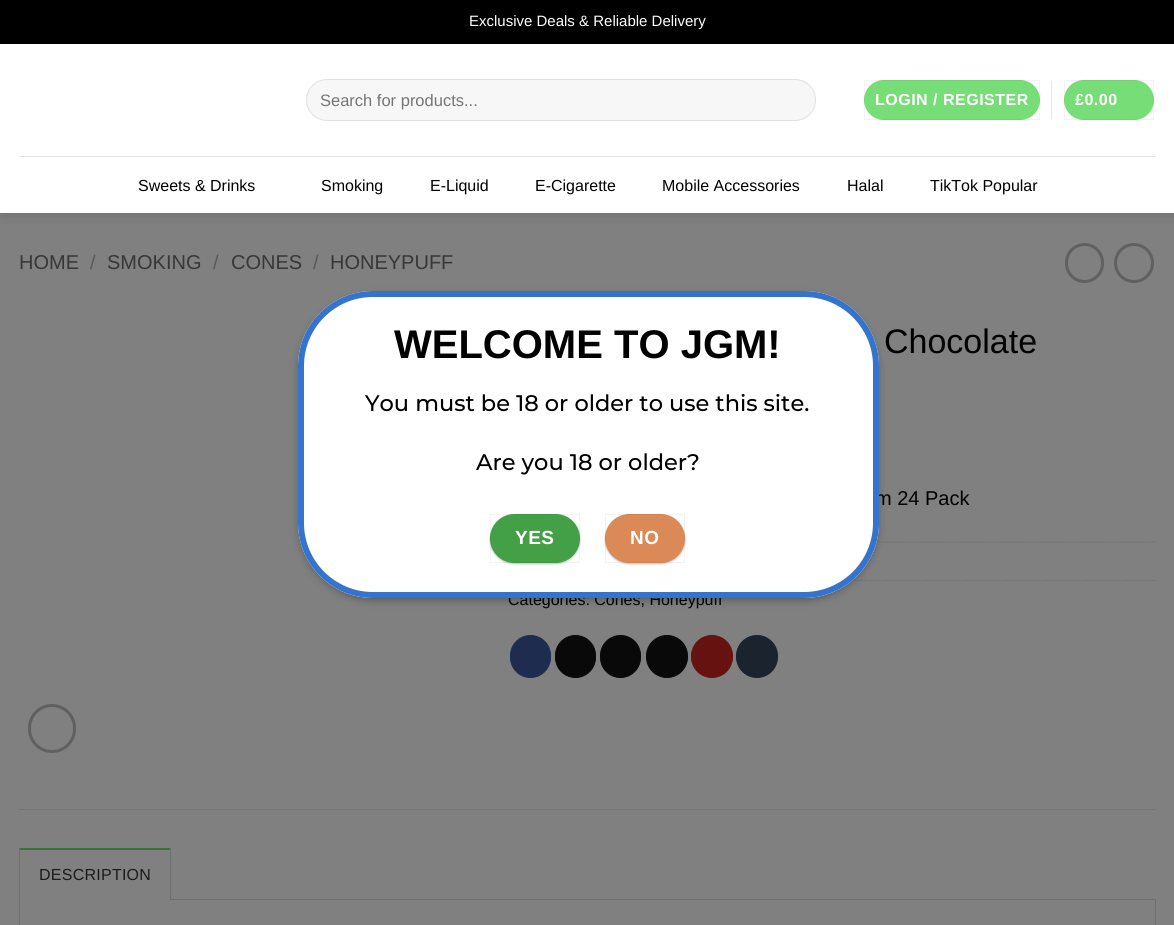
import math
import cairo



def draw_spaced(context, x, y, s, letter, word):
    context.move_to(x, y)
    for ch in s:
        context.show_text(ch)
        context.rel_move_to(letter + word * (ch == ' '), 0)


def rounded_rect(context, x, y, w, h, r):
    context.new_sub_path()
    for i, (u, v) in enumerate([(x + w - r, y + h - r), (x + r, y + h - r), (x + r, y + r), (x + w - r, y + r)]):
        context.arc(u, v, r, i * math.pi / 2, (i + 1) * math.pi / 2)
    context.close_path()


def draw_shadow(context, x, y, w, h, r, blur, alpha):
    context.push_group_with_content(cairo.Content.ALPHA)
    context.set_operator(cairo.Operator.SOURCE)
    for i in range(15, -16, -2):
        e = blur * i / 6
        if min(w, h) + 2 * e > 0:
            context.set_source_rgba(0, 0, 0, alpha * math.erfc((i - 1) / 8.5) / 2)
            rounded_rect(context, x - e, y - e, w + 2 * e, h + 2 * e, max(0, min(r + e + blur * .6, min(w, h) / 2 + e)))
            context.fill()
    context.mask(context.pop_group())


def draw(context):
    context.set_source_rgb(128 / 255, 128 / 255, 128 / 255)
    context.paint()
    context.set_source_rgb(0, 0, 0)
    draw_shadow(context, 1, 1, 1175, 213, 0, 6, 0.15)
    context.set_source_rgb(0, 0, 0)
    context.rectangle(0, 0, 1174, 44)
    context.fill()
    context.set_source_rgb(1, 1, 1)
    context.rectangle(0, 44, 1174, 169)
    context.fill()
    context.set_source_rgb(247 / 255, 247 / 255, 247 / 255)
    rounded_rect(context, 306, 79, 510, 42, 21)
    context.fill()
    rounded_rect(context, 306.5, 79.5, 509, 41, 20.5)
    context.set_source_rgba(0, 0, 0, 0.09)
    context.set_line_width(1)
    context.stroke()
    context.set_source_rgb(119 / 255, 221 / 255, 119 / 255)
    rounded_rect(context, 864, 80, 176, 40, 20)
    context.fill()
    context.rectangle(864.5, 80.5, 175, 39)
    context.set_source_rgba(0, 0, 0, 0.05)
    context.stroke()
    context.set_source_rgb(230 / 255, 230 / 255, 230 / 255)
    context.rectangle(1051, 81, 1, 38)
    context.fill()
    context.set_source_rgb(119 / 255, 221 / 255, 119 / 255)
    rounded_rect(context, 1064, 80, 90, 40, 20)
    context.fill()
    context.rectangle(1064.5, 80.5, 89, 39)
    context.set_source_rgba(0, 0, 0, 0.05)
    context.stroke()
    context.set_source_rgb(230 / 255, 230 / 255, 230 / 255)
    context.rectangle(19, 156, 1137, 1)
    context.fill()
    rounded_rect(context, 1066.5, 244.5, 36, 37, 18)
    context.set_source_rgb(96 / 255, 96 / 255, 96 / 255)
    context.set_line_width(3)
    context.stroke()
    context.arc(1134, 263, 18.5, 0, 2 * math.pi)
    context.stroke()
    context.new_path()
    context.move_to(509, 542)
    context.line_to(1156, 542)
    context.set_source_rgb(111 / 255, 111 / 255, 111 / 255)
    context.set_line_width(1.2)
    context.set_dash([1.25, 1.25])
    context.stroke()
    context.new_path()
    context.move_to(509, 580.5)
    context.line_to(1156, 580.5)
    context.stroke()
    context.set_source_rgb(29 / 255, 44 / 255, 79 / 255)
    rounded_rect(context, 510.5, 635.5, 40, 42, 20)
    context.fill_preserve()
    context.set_line_width(1)
    context.set_dash([])
    context.stroke()
    context.set_source_rgb(9 / 255, 9 / 255, 9 / 255)
    rounded_rect(context, 555.5, 635.5, 40, 42, 20)
    context.fill_preserve()
    context.stroke()
    rounded_rect(context, 600.5, 635.5, 40, 42, 20)
    context.fill_preserve()
    context.stroke()
    rounded_rect(context, 646.5, 635.5, 41, 42, 20.5)
    context.fill_preserve()
    context.stroke()
    context.set_source_rgb(102 / 255, 18 / 255, 16 / 255)
    rounded_rect(context, 691.5, 635.5, 41, 42, 20.5)
    context.fill_preserve()
    context.stroke()
    context.set_source_rgb(27 / 255, 35 / 255, 47 / 255)
    rounded_rect(context, 736.5, 635.5, 41, 42, 20.5)
    context.fill_preserve()
    context.stroke()
    rounded_rect(context, 29.5, 705.5, 45, 46, 22.5)
    context.set_source_rgb(96 / 255, 96 / 255, 96 / 255)
    context.set_line_width(3)
    context.stroke()
    context.set_source_rgb(118 / 255, 118 / 255, 118 / 255)
    context.rectangle(19, 809, 1137, 1)
    context.fill()
    context.rectangle(19.5, 899.5, 1136, 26)
    context.set_source_rgb(111 / 255, 111 / 255, 111 / 255)
    context.set_line_width(1)
    context.stroke()
    context.set_source_rgb(128 / 255, 128 / 255, 128 / 255)
    context.rectangle(19, 899, 152, 1)
    context.fill()
    context.set_source_rgb(60 / 255, 111 / 255, 60 / 255)
    context.new_path()
    context.move_to(19, 848)
    context.line_to(171, 848)
    context.line_to(170, 850)
    context.line_to(20, 850)
    context.close_path()
    context.fill()
    context.set_source_rgb(111 / 255, 111 / 255, 111 / 255)
    context.new_path()
    context.move_to(171, 848)
    context.line_to(171, 900)
    context.line_to(170, 900)
    context.line_to(170, 850)
    context.close_path()
    context.fill()
    context.new_path()
    context.move_to(19, 900)
    context.line_to(19, 848)
    context.line_to(20, 850)
    context.line_to(20, 900)
    context.close_path()
    context.fill()
    context.set_source_rgb(0, 0, 0)
    draw_shadow(context, 298, 295, 581, 306, 75, 4, 0.23)
    draw_shadow(context, 303, 300, 571, 296, 70, 4, 0.16)
    context.select_font_face("Liberation Sans")
    context.set_font_size(15)
    context.set_source_rgb(1, 1, 1)
    context.move_to(469, 26)
    context.show_text("Exclusive Deals & Reliable Delivery")
    context.set_font_size(16.5)
    context.set_source_rgb(117 / 255, 117 / 255, 117 / 255)
    context.move_to(320, 106)
    context.show_text("Search for products...")
    context.select_font_face("Liberation Sans", cairo.FontSlant.NORMAL, cairo.FontWeight.BOLD)
    context.set_font_size(16)
    context.set_source_rgb(1, 1, 1)
    draw_spaced(context, 875, 105, "LOGIN / REGISTER", 0.5, 0)
    draw_spaced(context, 1075, 105, "£0.00", 0.5, 0)
    context.select_font_face("Liberation Sans")
    context.set_source_rgb(0, 0, 0)
    context.move_to(138, 191)
    context.show_text("Sweets & Drinks")
    context.move_to(321, 191)
    context.show_text("Smoking")
    context.move_to(430, 191)
    context.show_text("E-Liquid")
    context.move_to(535, 191)
    context.show_text("E-Cigarette")
    context.move_to(662, 191)
    context.show_text("Mobile Accessories")
    context.move_to(847, 191)
    context.show_text("Halal")
    context.move_to(930, 191)
    context.show_text("TikTok Popular")
    context.set_font_size(20)
    context.set_source_rgb(55 / 255, 55 / 255, 55 / 255)
    context.move_to(19, 269)
    context.show_text("HOME")
    context.set_source_rgb(89 / 255, 89 / 255, 89 / 255)
    context.move_to(90, 269)
    context.show_text("/")
    context.set_source_rgb(55 / 255, 55 / 255, 55 / 255)
    context.move_to(107, 269)
    context.show_text("SMOKING")
    context.set_source_rgb(89 / 255, 89 / 255, 89 / 255)
    context.move_to(213, 269)
    context.show_text("/")
    context.set_source_rgb(55 / 255, 55 / 255, 55 / 255)
    context.move_to(231, 269)
    context.show_text("CONES")
    context.set_source_rgb(89 / 255, 89 / 255, 89 / 255)
    context.move_to(313, 269)
    context.show_text("/")
    context.set_source_rgb(55 / 255, 55 / 255, 55 / 255)
    context.move_to(330, 269)
    context.show_text("HONEYPUFF")
    context.set_font_size(34)
    context.set_source_rgb(0, 0, 0)
    context.move_to(884, 353)
    context.show_text("Chocolate")
    context.set_font_size(20)
    context.move_to(875, 505)
    context.show_text("m 24 Pack")
    context.set_font_size(16)
    context.move_to(508, 605)
    context.show_text("Categories: Cones, Honeypuff")
    context.set_source_rgb(27 / 255, 27 / 255, 27 / 255)
    draw_spaced(context, 39, 880, "DESCRIPTION", 0.25, 0)
    context.set_source_rgb(1, 1, 1)
    rounded_rect(context, 298, 291, 581, 307, 75)
    context.fill()
    rounded_rect(context, 301, 294, 575, 301, 72)
    context.set_source_rgb(52 / 255, 116 / 255, 204 / 255)
    context.set_line_width(6)
    context.stroke()
    context.select_font_face("Liberation Sans", cairo.FontSlant.NORMAL, cairo.FontWeight.BOLD)
    context.set_font_size(40)
    context.set_source_rgb(0, 0, 0)
    context.move_to(394, 358)
    context.show_text("WELCOME TO JGM!")
    context.select_font_face("Montserrat Medium")
    context.set_font_size(22.5)
    context.move_to(365, 411)
    context.show_text("You must be 18 or older to use this site.")
    context.move_to(476, 470)
    context.show_text("Are you 18 or older?")
    context.set_source_rgb(0, 0, 0)
    draw_shadow(context, 490, 515, 90, 49, 24.5, 1, 0.24)
    draw_shadow(context, 493, 518, 85, 43, 21.5, 2, 0.12)
    context.set_source_rgb(67 / 255, 160 / 255, 71 / 255)
    rounded_rect(context, 490, 514, 90, 49, 24.5)
    context.fill()
    context.rectangle(490.5, 514.5, 89, 48)
    context.set_source_rgba(0, 0, 0, 0.05)
    context.set_line_width(1)
    context.stroke()
    context.select_font_face("Liberation Sans", cairo.FontSlant.NORMAL, cairo.FontWeight.BOLD)
    context.set_font_size(19)
    context.set_source_rgb(1, 1, 1)
    draw_spaced(context, 515, 544, "YES", 0.5, 0)
    context.set_source_rgb(0, 0, 0)
    draw_shadow(context, 605, 515, 80, 49, 24.5, 1, 0.24)
    draw_shadow(context, 608, 518, 75, 43, 21.5, 2, 0.12)
    context.set_source_rgb(219 / 255, 137 / 255, 86 / 255)
    rounded_rect(context, 605, 514, 80, 49, 24.5)
    context.fill()
    context.rectangle(605.5, 514.5, 79, 48)
    context.set_source_rgba(0, 0, 0, 0.05)
    context.stroke()
    context.set_source_rgb(1, 1, 1)
    draw_spaced(context, 630, 544, "NO", 0.5, 0)


surface = cairo.ImageSurface(cairo.Format.RGB24, 1174, 925)
context = cairo.Context(surface)
options = cairo.FontOptions()
options.set_hint_metrics(cairo.HintMetrics.OFF)
options.set_hint_style(cairo.HintStyle.NONE)
context.set_font_options(options)
context.set_miter_limit(4)
draw(context)
surface.write_to_png("out.png")
